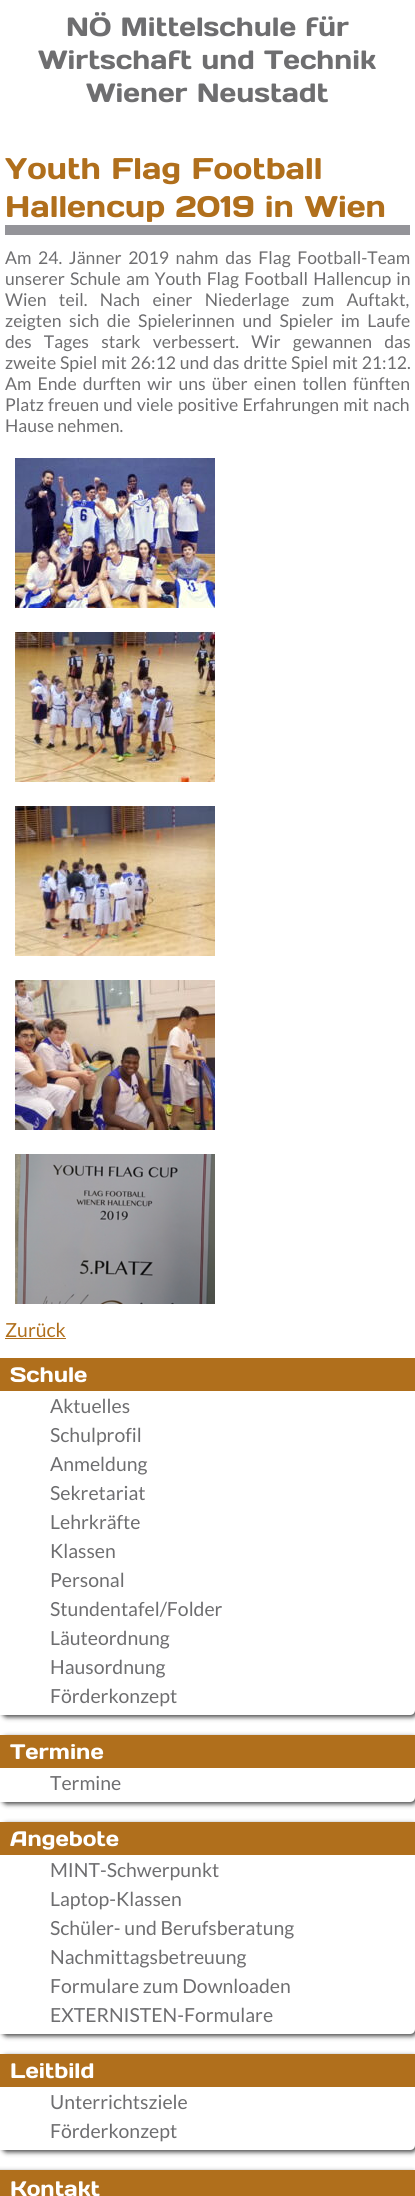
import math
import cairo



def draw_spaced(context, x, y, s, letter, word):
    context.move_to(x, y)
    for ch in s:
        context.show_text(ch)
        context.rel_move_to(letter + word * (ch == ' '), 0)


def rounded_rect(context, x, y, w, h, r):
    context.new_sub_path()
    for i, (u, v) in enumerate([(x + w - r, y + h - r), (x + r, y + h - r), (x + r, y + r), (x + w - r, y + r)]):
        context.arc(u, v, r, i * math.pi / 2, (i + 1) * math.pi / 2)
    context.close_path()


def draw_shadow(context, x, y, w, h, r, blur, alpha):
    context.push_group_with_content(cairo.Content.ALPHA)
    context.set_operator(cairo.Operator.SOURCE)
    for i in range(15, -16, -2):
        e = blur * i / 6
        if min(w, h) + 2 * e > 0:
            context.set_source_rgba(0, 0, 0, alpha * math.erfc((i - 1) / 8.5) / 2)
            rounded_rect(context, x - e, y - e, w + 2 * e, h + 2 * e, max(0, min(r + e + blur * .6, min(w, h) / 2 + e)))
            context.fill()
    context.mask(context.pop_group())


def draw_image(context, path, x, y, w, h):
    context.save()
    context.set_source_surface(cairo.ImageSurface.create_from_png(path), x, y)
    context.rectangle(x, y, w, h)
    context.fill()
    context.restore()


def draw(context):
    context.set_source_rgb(1, 1, 1)
    context.paint()
    context.set_source_rgb(148 / 255, 148 / 255, 153 / 255)
    context.rectangle(5, 225, 405, 10)
    context.fill()
    draw_image(context, "images/1.png", 15, 458, 200, 150)
    draw_image(context, "images/2.png", 15, 632, 200, 150)
    draw_image(context, "images/3.png", 15, 806, 200, 150)
    draw_image(context, "images/4.png", 15, 980, 200, 150)
    draw_image(context, "images/5.png", 15, 1154, 200, 150)
    context.set_source_rgb(176 / 255, 111 / 255, 28 / 255)
    context.rectangle(5, 1338, 61, 1)
    context.fill()
    context.save()
    context.rectangle(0, 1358, 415, 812)
    context.clip()
    context.set_source_rgb(0, 0, 0)
    draw_shadow(context, 2, 1360, 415, 357, 5, 2.5, 0.75)
    context.restore()
    context.rectangle(0, 1358, 415, 33)
    context.fill()
    context.set_source_rgb(1, 1, 1)
    context.new_path()
    context.move_to(0, 1391)
    context.line_to(415, 1391)
    context.line_to(415, 1710)
    context.curve_to(415, 1713, 413, 1715, 410, 1715)
    context.line_to(0, 1715)
    context.close_path()
    context.fill()
    context.set_source_rgb(0, 0, 0)
    draw_shadow(context, 2, 1737, 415, 67, 5, 2.5, 0.75)
    context.set_source_rgb(176 / 255, 111 / 255, 28 / 255)
    context.rectangle(0, 1735, 415, 33)
    context.fill()
    context.set_source_rgb(1, 1, 1)
    context.new_path()
    context.move_to(0, 1768)
    context.line_to(415, 1768)
    context.line_to(415, 1797)
    context.curve_to(415, 1800, 413, 1802, 410, 1802)
    context.line_to(0, 1802)
    context.close_path()
    context.fill()
    context.set_source_rgb(0, 0, 0)
    draw_shadow(context, 2, 1824, 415, 212, 5, 2.5, 0.75)
    context.set_source_rgb(176 / 255, 111 / 255, 28 / 255)
    context.rectangle(0, 1822, 415, 33)
    context.fill()
    context.set_source_rgb(1, 1, 1)
    context.new_path()
    context.move_to(0, 1855)
    context.line_to(415, 1855)
    context.line_to(415, 2029)
    context.curve_to(415, 2032, 413, 2034, 410, 2034)
    context.line_to(0, 2034)
    context.close_path()
    context.fill()
    context.set_source_rgb(0, 0, 0)
    draw_shadow(context, 2, 2056, 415, 96, 5, 2.5, 0.75)
    context.set_source_rgb(176 / 255, 111 / 255, 28 / 255)
    context.rectangle(0, 2054, 415, 33)
    context.fill()
    context.set_source_rgb(1, 1, 1)
    context.new_path()
    context.move_to(0, 2087)
    context.line_to(415, 2087)
    context.line_to(415, 2145)
    context.curve_to(415, 2148, 413, 2150, 410, 2150)
    context.line_to(0, 2150)
    context.close_path()
    context.fill()
    context.set_source_rgb(0, 0, 0)
    draw_shadow(context, -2, 2172, 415, 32, 0, 2.5, 0.75)
    context.set_source_rgb(176 / 255, 111 / 255, 28 / 255)
    context.rectangle(0, 2170, 415, 26)
    context.fill()
    context.select_font_face("Days One")
    context.set_font_size(26.4)
    context.set_source_rgb(110 / 255, 110 / 255, 112 / 255)
    context.move_to(66, 36)
    context.show_text("NÖ Mittelschule für")
    context.move_to(38, 69)
    context.show_text("Wirtschaft und Technik")
    context.move_to(86, 102)
    context.show_text("Wiener Neustadt")
    context.set_font_size(29.9)
    context.set_source_rgb(176 / 255, 111 / 255, 28 / 255)
    context.move_to(5, 179)
    context.show_text("Youth Flag Football")
    context.move_to(5, 217)
    context.show_text("Hallencup 2019 in Wien")
    context.select_font_face("Lato")
    context.set_font_size(17.6)
    context.set_source_rgb(110 / 255, 110 / 255, 112 / 255)
    draw_spaced(context, 5, 264, "Am 24. Jänner 2019 nahm das Flag Football-Team", 0, 3.25)
    draw_spaced(context, 5, 285, "unserer Schule am Youth Flag Football Hallencup in", 0, 1.75)
    draw_spaced(context, 5, 306, "Wien teil. Nach einer Niederlage zum Auftakt,", 0, 9)
    draw_spaced(context, 5, 327, "zeigten sich die Spielerinnen und Spieler im Laufe", 0, 4.25)
    draw_spaced(context, 5, 348, "des Tages stark verbessert. Wir gewannen das", 0, 8.75)
    draw_spaced(context, 5, 369, "zweite Spiel mit 26:12 und das dritte Spiel mit 21:12.", 0, 0.5)
    draw_spaced(context, 5, 390, "Am Ende durften wir uns über einen tollen fünften", 0, 2.75)
    draw_spaced(context, 5, 411, "Platz freuen und viele positive Erfahrungen mit nach", 0, 0.75)
    context.move_to(5, 432)
    context.show_text("Hause nehmen.")
    context.set_font_size(19.4)
    context.set_source_rgb(176 / 255, 111 / 255, 28 / 255)
    context.move_to(5, 1337)
    context.show_text("Zurück")
    context.select_font_face("Days One")
    context.set_font_size(21)
    context.set_source_rgb(1, 1, 1)
    context.move_to(10, 1382)
    context.show_text("Schule")
    context.select_font_face("Lato")
    context.set_font_size(19.4)
    context.set_source_rgb(110 / 255, 110 / 255, 112 / 255)
    context.move_to(50, 1413)
    context.show_text("Aktuelles")
    context.move_to(50, 1442)
    context.show_text("Schulprofil")
    context.move_to(50, 1471)
    context.show_text("Anmeldung")
    context.move_to(50, 1500)
    context.show_text("Sekretariat")
    context.move_to(50, 1529)
    context.show_text("Lehrkräfte")
    context.move_to(50, 1558)
    context.show_text("Klassen")
    context.move_to(50, 1587)
    context.show_text("Personal")
    context.move_to(50, 1616)
    context.show_text("Stundentafel/Folder")
    context.move_to(50, 1645)
    context.show_text("Läuteordnung")
    context.move_to(50, 1674)
    context.show_text("Hausordnung")
    context.move_to(50, 1703)
    context.show_text("Förderkonzept")
    context.select_font_face("Days One")
    context.set_font_size(21)
    context.set_source_rgb(1, 1, 1)
    context.move_to(10, 1759)
    context.show_text("Termine")
    context.select_font_face("Lato")
    context.set_font_size(19.4)
    context.set_source_rgb(110 / 255, 110 / 255, 112 / 255)
    context.move_to(50, 1790)
    context.show_text("Termine")
    context.select_font_face("Days One")
    context.set_font_size(21)
    context.set_source_rgb(1, 1, 1)
    context.move_to(10, 1846)
    context.show_text("Angebote")
    context.select_font_face("Lato")
    context.set_font_size(19.4)
    context.set_source_rgb(110 / 255, 110 / 255, 112 / 255)
    context.move_to(50, 1877)
    context.show_text("MINT-Schwerpunkt")
    context.move_to(50, 1906)
    context.show_text("Laptop-Klassen")
    context.move_to(50, 1935)
    context.show_text("Schüler- und Berufsberatung")
    context.move_to(50, 1964)
    context.show_text("Nachmittagsbetreuung")
    context.move_to(50, 1993)
    context.show_text("Formulare zum Downloaden")
    context.move_to(50, 2022)
    context.show_text("EXTERNISTEN-Formulare")
    context.select_font_face("Days One")
    context.set_font_size(21)
    context.set_source_rgb(1, 1, 1)
    context.move_to(10, 2078)
    context.show_text("Leitbild")
    context.select_font_face("Lato")
    context.set_font_size(19.4)
    context.set_source_rgb(110 / 255, 110 / 255, 112 / 255)
    context.move_to(50, 2109)
    context.show_text("Unterrichtsziele")
    context.move_to(50, 2138)
    context.show_text("Förderkonzept")
    context.select_font_face("Days One")
    context.set_font_size(21)
    context.set_source_rgb(1, 1, 1)
    context.move_to(10, 2196)
    context.show_text("Kontakt")


surface = cairo.ImageSurface(cairo.Format.RGB24, 415, 2196)
context = cairo.Context(surface)
options = cairo.FontOptions()
options.set_hint_metrics(cairo.HintMetrics.OFF)
options.set_hint_style(cairo.HintStyle.NONE)
context.set_font_options(options)
context.set_miter_limit(4)
draw(context)
surface.write_to_png("out.png")
